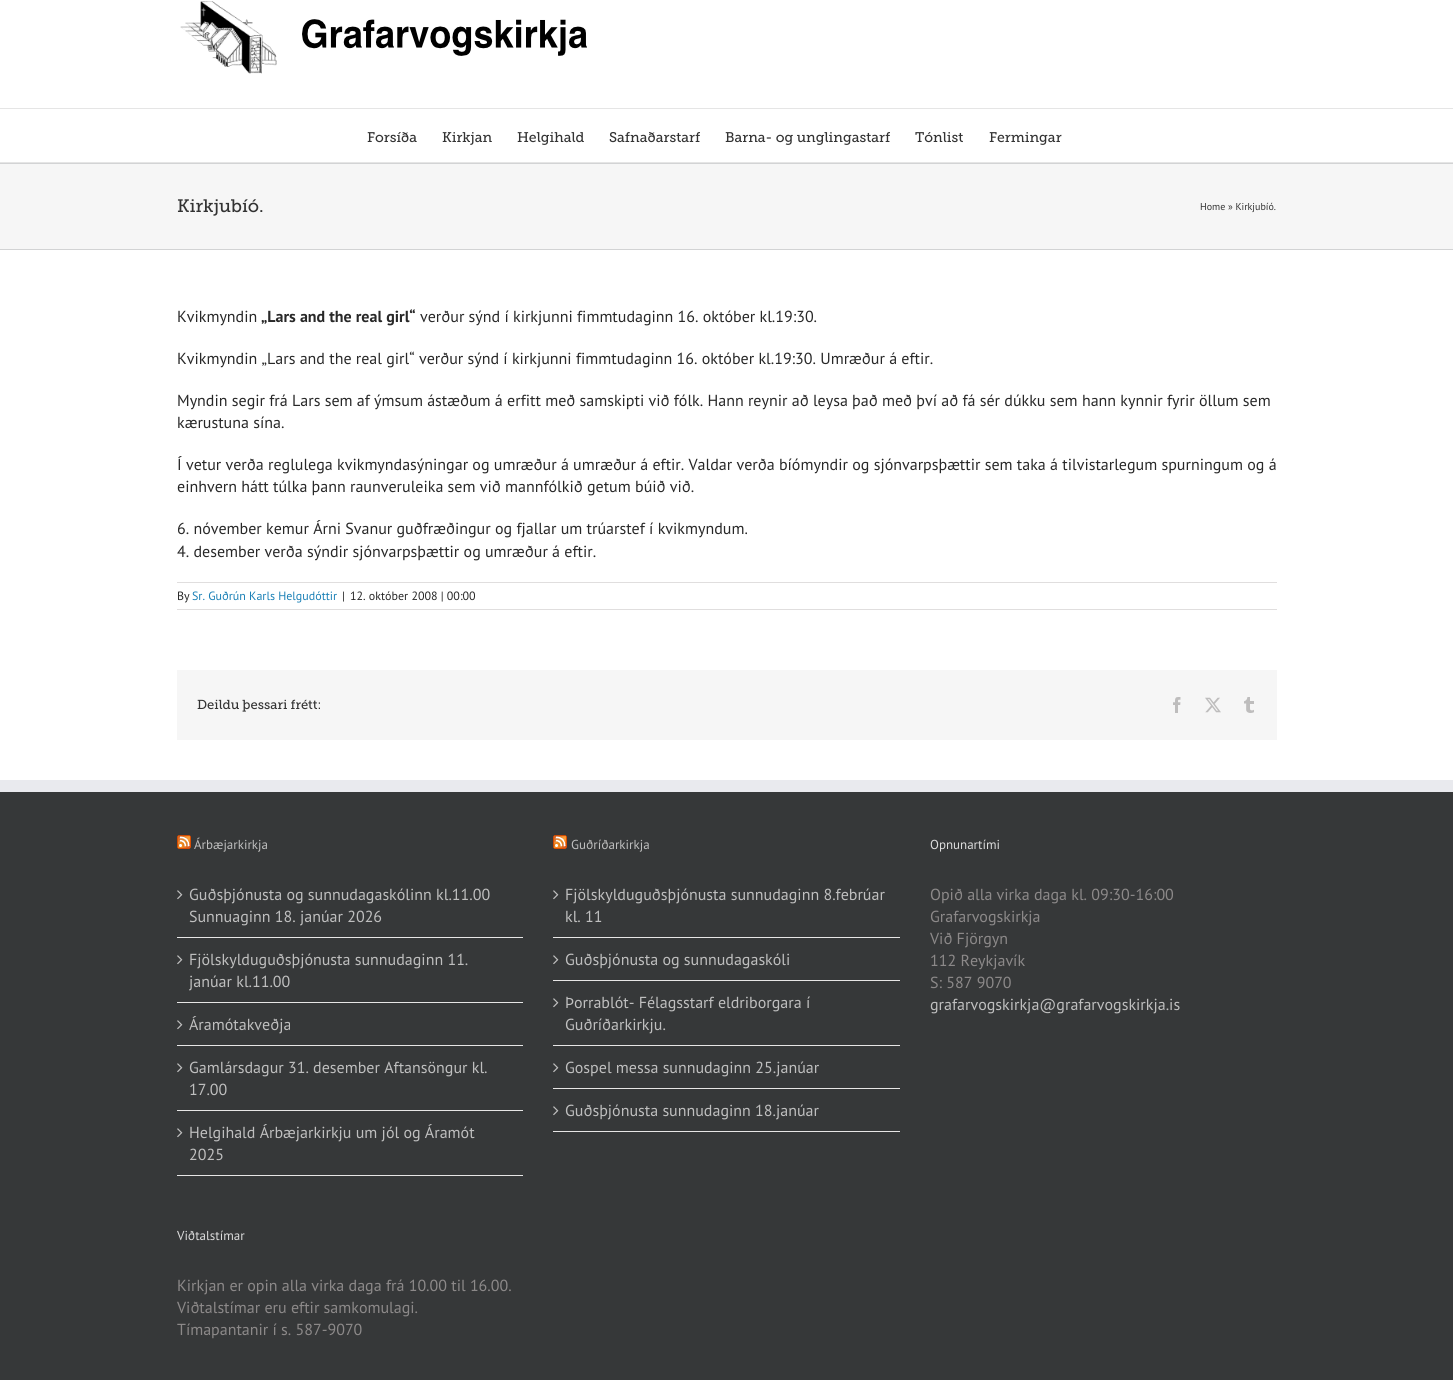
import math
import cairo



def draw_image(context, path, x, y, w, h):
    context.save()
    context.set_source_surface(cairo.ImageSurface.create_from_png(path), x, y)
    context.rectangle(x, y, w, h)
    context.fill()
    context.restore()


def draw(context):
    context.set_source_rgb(1, 1, 1)
    context.paint()
    context.set_source_rgb(229 / 255, 229 / 255, 229 / 255)
    context.rectangle(0, 108, 1453, 1)
    context.fill()
    draw_image(context, "images/1.png", 180, 1, 407, 73)
    context.rectangle(0, 162, 1453, 1)
    context.fill()
    context.set_source_rgb(246 / 255, 246 / 255, 246 / 255)
    context.rectangle(0, 164, 1453, 85)
    context.fill()
    context.set_source_rgb(210 / 255, 211 / 255, 212 / 255)
    context.rectangle(0, 163, 1453, 1)
    context.fill()
    context.rectangle(0, 249, 1453, 1)
    context.fill()
    context.set_source_rgb(224 / 255, 222 / 255, 222 / 255)
    context.rectangle(177, 582, 1100, 1)
    context.fill()
    context.rectangle(177, 609, 1100, 1)
    context.fill()
    context.set_source_rgb(246 / 255, 246 / 255, 246 / 255)
    context.rectangle(177, 670, 1100, 70)
    context.fill()
    draw_image(context, "images/2.png", 1173, 697, 8, 16)
    draw_image(context, "images/3.png", 1205, 697, 16, 16)
    draw_image(context, "images/4.png", 1244, 697, 10, 16)
    context.set_source_rgb(54 / 255, 56 / 255, 57 / 255)
    context.rectangle(0, 792, 1453, 588)
    context.fill()
    context.set_source_rgb(233 / 255, 234 / 255, 238 / 255)
    context.rectangle(0, 780, 1453, 12)
    context.fill()
    draw_image(context, "images/5.png", 177, 835, 14, 14)
    context.set_source_rgb(231 / 255, 230 / 255, 230 / 255)
    context.rectangle(177, 937, 346, 1)
    context.fill()
    draw_image(context, "images/6.png", 177, 890, 6, 10)
    context.rectangle(177, 1002, 346, 1)
    context.fill()
    draw_image(context, "images/6.png", 177, 955, 6, 10)
    context.rectangle(177, 1045, 346, 1)
    context.fill()
    draw_image(context, "images/6.png", 177, 1020, 6, 10)
    context.rectangle(177, 1110, 346, 1)
    context.fill()
    draw_image(context, "images/6.png", 177, 1063, 6, 10)
    context.rectangle(177, 1175, 346, 1)
    context.fill()
    draw_image(context, "images/6.png", 177, 1128, 6, 10)
    draw_image(context, "images/5.png", 553, 835, 14, 14)
    context.rectangle(553, 937, 347, 1)
    context.fill()
    draw_image(context, "images/6.png", 553, 890, 6, 10)
    context.rectangle(553, 980, 347, 1)
    context.fill()
    draw_image(context, "images/6.png", 553, 955, 6, 10)
    context.rectangle(553, 1045, 347, 1)
    context.fill()
    draw_image(context, "images/6.png", 553, 998, 6, 10)
    context.rectangle(553, 1088, 347, 1)
    context.fill()
    draw_image(context, "images/6.png", 553, 1063, 6, 10)
    context.rectangle(553, 1131, 347, 1)
    context.fill()
    draw_image(context, "images/6.png", 553, 1106, 6, 10)
    context.select_font_face("Museo Slab")
    context.set_font_size(14)
    context.set_source_rgb(51 / 255, 51 / 255, 51 / 255)
    context.move_to(367, 142)
    context.show_text("Forsíða")
    context.move_to(442, 142)
    context.show_text("Kirkjan")
    context.move_to(517, 142)
    context.show_text("Helgihald")
    context.move_to(609, 142)
    context.show_text("Safnaðarstarf")
    context.move_to(725, 142)
    context.show_text("Barna- og unglingastarf")
    context.move_to(915, 142)
    context.show_text("Tónlist")
    context.move_to(989, 142)
    context.show_text("Fermingar")
    context.set_font_size(18)
    context.move_to(177, 212)
    context.show_text("Kirkjubíó.")
    context.select_font_face("PT Sans")
    context.set_font_size(10)
    context.move_to(1200, 210)
    context.show_text("Home » Kirkjubíó.")
    context.set_font_size(16)
    context.set_source_rgb(40 / 255, 40 / 255, 40 / 255)
    context.move_to(177, 322)
    context.show_text("Kvikmyndin")
    context.select_font_face("PT Sans", cairo.FontSlant.NORMAL, cairo.FontWeight.BOLD)
    context.move_to(261, 322)
    context.show_text("„Lars and the real girl“")
    context.select_font_face("PT Sans")
    context.move_to(420, 322)
    context.show_text("verður sýnd í kirkjunni fimmtudaginn 16. október kl.19:30.")
    context.move_to(177, 364)
    context.show_text("Kvikmyndin „Lars and the real girl“ verður sýnd í kirkjunni fimmtudaginn 16. október kl.19:30. Umræður á eftir.")
    context.move_to(177, 406)
    context.show_text("Myndin segir frá Lars sem af ýmsum ástæðum á erfitt með samskipti við fólk. Hann reynir að leysa það með því að fá sér dúkku sem hann kynnir fyrir öllum sem")
    context.move_to(177, 428)
    context.show_text("kærustuna sína.")
    context.move_to(177, 470)
    context.show_text("Í vetur verða reglulega kvikmyndasýningar og umræður á umræður á eftir. Valdar verða bíómyndir og sjónvarpsþættir sem taka á tilvistarlegum spurningum og á")
    context.move_to(177, 492)
    context.show_text("einhvern hátt túlka þann raunveruleika sem við mannfólkið getum búið við.")
    context.move_to(177, 534)
    context.show_text("6. nóvember kemur Árni Svanur guðfræðingur og fjallar um trúarstef í kvikmyndum.")
    context.move_to(177, 557)
    context.show_text("4. desember verða sýndir sjónvarpsþættir og umræður á eftir.")
    context.set_font_size(12)
    context.move_to(177, 600)
    context.show_text("By")
    context.set_source_rgb(26 / 255, 128 / 255, 182 / 255)
    context.move_to(192, 600)
    context.show_text("Sr. Guðrún Karls Helgudóttir")
    context.set_source_rgb(40 / 255, 40 / 255, 40 / 255)
    context.move_to(342, 600)
    context.show_text("|")
    context.move_to(350, 600)
    context.show_text("12. október 2008 | 00:00")
    context.select_font_face("Museo Slab")
    context.set_font_size(13)
    context.set_source_rgb(51 / 255, 51 / 255, 51 / 255)
    context.move_to(197, 709)
    context.show_text("Deildu þessari frétt:")
    context.select_font_face("PT Sans")
    context.set_source_rgb(191 / 255, 191 / 255, 191 / 255)
    context.move_to(194, 849)
    context.show_text("Árbæjarkirkja")
    context.set_font_size(16)
    context.move_to(189, 900)
    context.show_text("Guðsþjónusta og sunnudagaskólinn kl.11.00")
    context.move_to(189, 922)
    context.show_text("Sunnuaginn 18. janúar 2026")
    context.move_to(189, 965)
    context.show_text("Fjölskylduguðsþjónusta sunnudaginn 11.")
    context.move_to(189, 987)
    context.show_text("janúar kl.11.00")
    context.move_to(189, 1030)
    context.show_text("Áramótakveðja")
    context.move_to(189, 1073)
    context.show_text("Gamlársdagur 31. desember Aftansöngur kl.")
    context.move_to(189, 1095)
    context.show_text("17.00")
    context.move_to(189, 1138)
    context.show_text("Helgihald Árbæjarkirkju um jól og Áramót")
    context.move_to(189, 1160)
    context.show_text("2025")
    context.set_font_size(13)
    context.set_source_rgb(221 / 255, 221 / 255, 221 / 255)
    context.move_to(177, 1240)
    context.show_text("Viðtalstímar")
    context.set_font_size(16)
    context.set_source_rgb(140 / 255, 137 / 255, 137 / 255)
    context.move_to(177, 1291)
    context.show_text("Kirkjan er opin alla virka daga frá 10.00 til 16.00.")
    context.move_to(177, 1313)
    context.show_text("Viðtalstímar eru eftir samkomulagi.")
    context.move_to(177, 1335)
    context.show_text("Tímapantanir í s. 587-9070")
    context.set_font_size(13)
    context.set_source_rgb(191 / 255, 191 / 255, 191 / 255)
    context.move_to(571, 849)
    context.show_text("Guðríðarkirkja")
    context.set_font_size(16)
    context.move_to(565, 900)
    context.show_text("Fjölskylduguðsþjónusta sunnudaginn 8.febrúar")
    context.move_to(565, 922)
    context.show_text("kl. 11")
    context.move_to(565, 965)
    context.show_text("Guðsþjónusta og sunnudagaskóli")
    context.move_to(565, 1008)
    context.show_text("Þorrablót- Félagsstarf eldriborgara í")
    context.move_to(565, 1030)
    context.show_text("Guðríðarkirkju.")
    context.move_to(565, 1073)
    context.show_text("Gospel messa sunnudaginn 25.janúar")
    context.move_to(565, 1116)
    context.show_text("Guðsþjónusta sunnudaginn 18.janúar")
    context.set_font_size(13)
    context.set_source_rgb(221 / 255, 221 / 255, 221 / 255)
    context.move_to(930, 849)
    context.show_text("Opnunartími")
    context.set_font_size(16)
    context.set_source_rgb(140 / 255, 137 / 255, 137 / 255)
    context.move_to(930, 900)
    context.show_text("Opið alla virka daga kl. 09:30-16:00")
    context.move_to(930, 922)
    context.show_text("Grafarvogskirkja")
    context.move_to(930, 944)
    context.show_text("Við Fjörgyn")
    context.move_to(930, 966)
    context.show_text("112 Reykjavík")
    context.move_to(930, 988)
    context.show_text("S: 587 9070")
    context.set_source_rgb(191 / 255, 191 / 255, 191 / 255)
    context.move_to(930, 1010)
    context.show_text("grafarvogskirkja@grafarvogskirkja.is")


surface = cairo.ImageSurface(cairo.Format.RGB24, 1453, 1380)
context = cairo.Context(surface)
options = cairo.FontOptions()
options.set_hint_metrics(cairo.HintMetrics.OFF)
options.set_hint_style(cairo.HintStyle.NONE)
context.set_font_options(options)
context.set_miter_limit(4)
draw(context)
surface.write_to_png("out.png")
